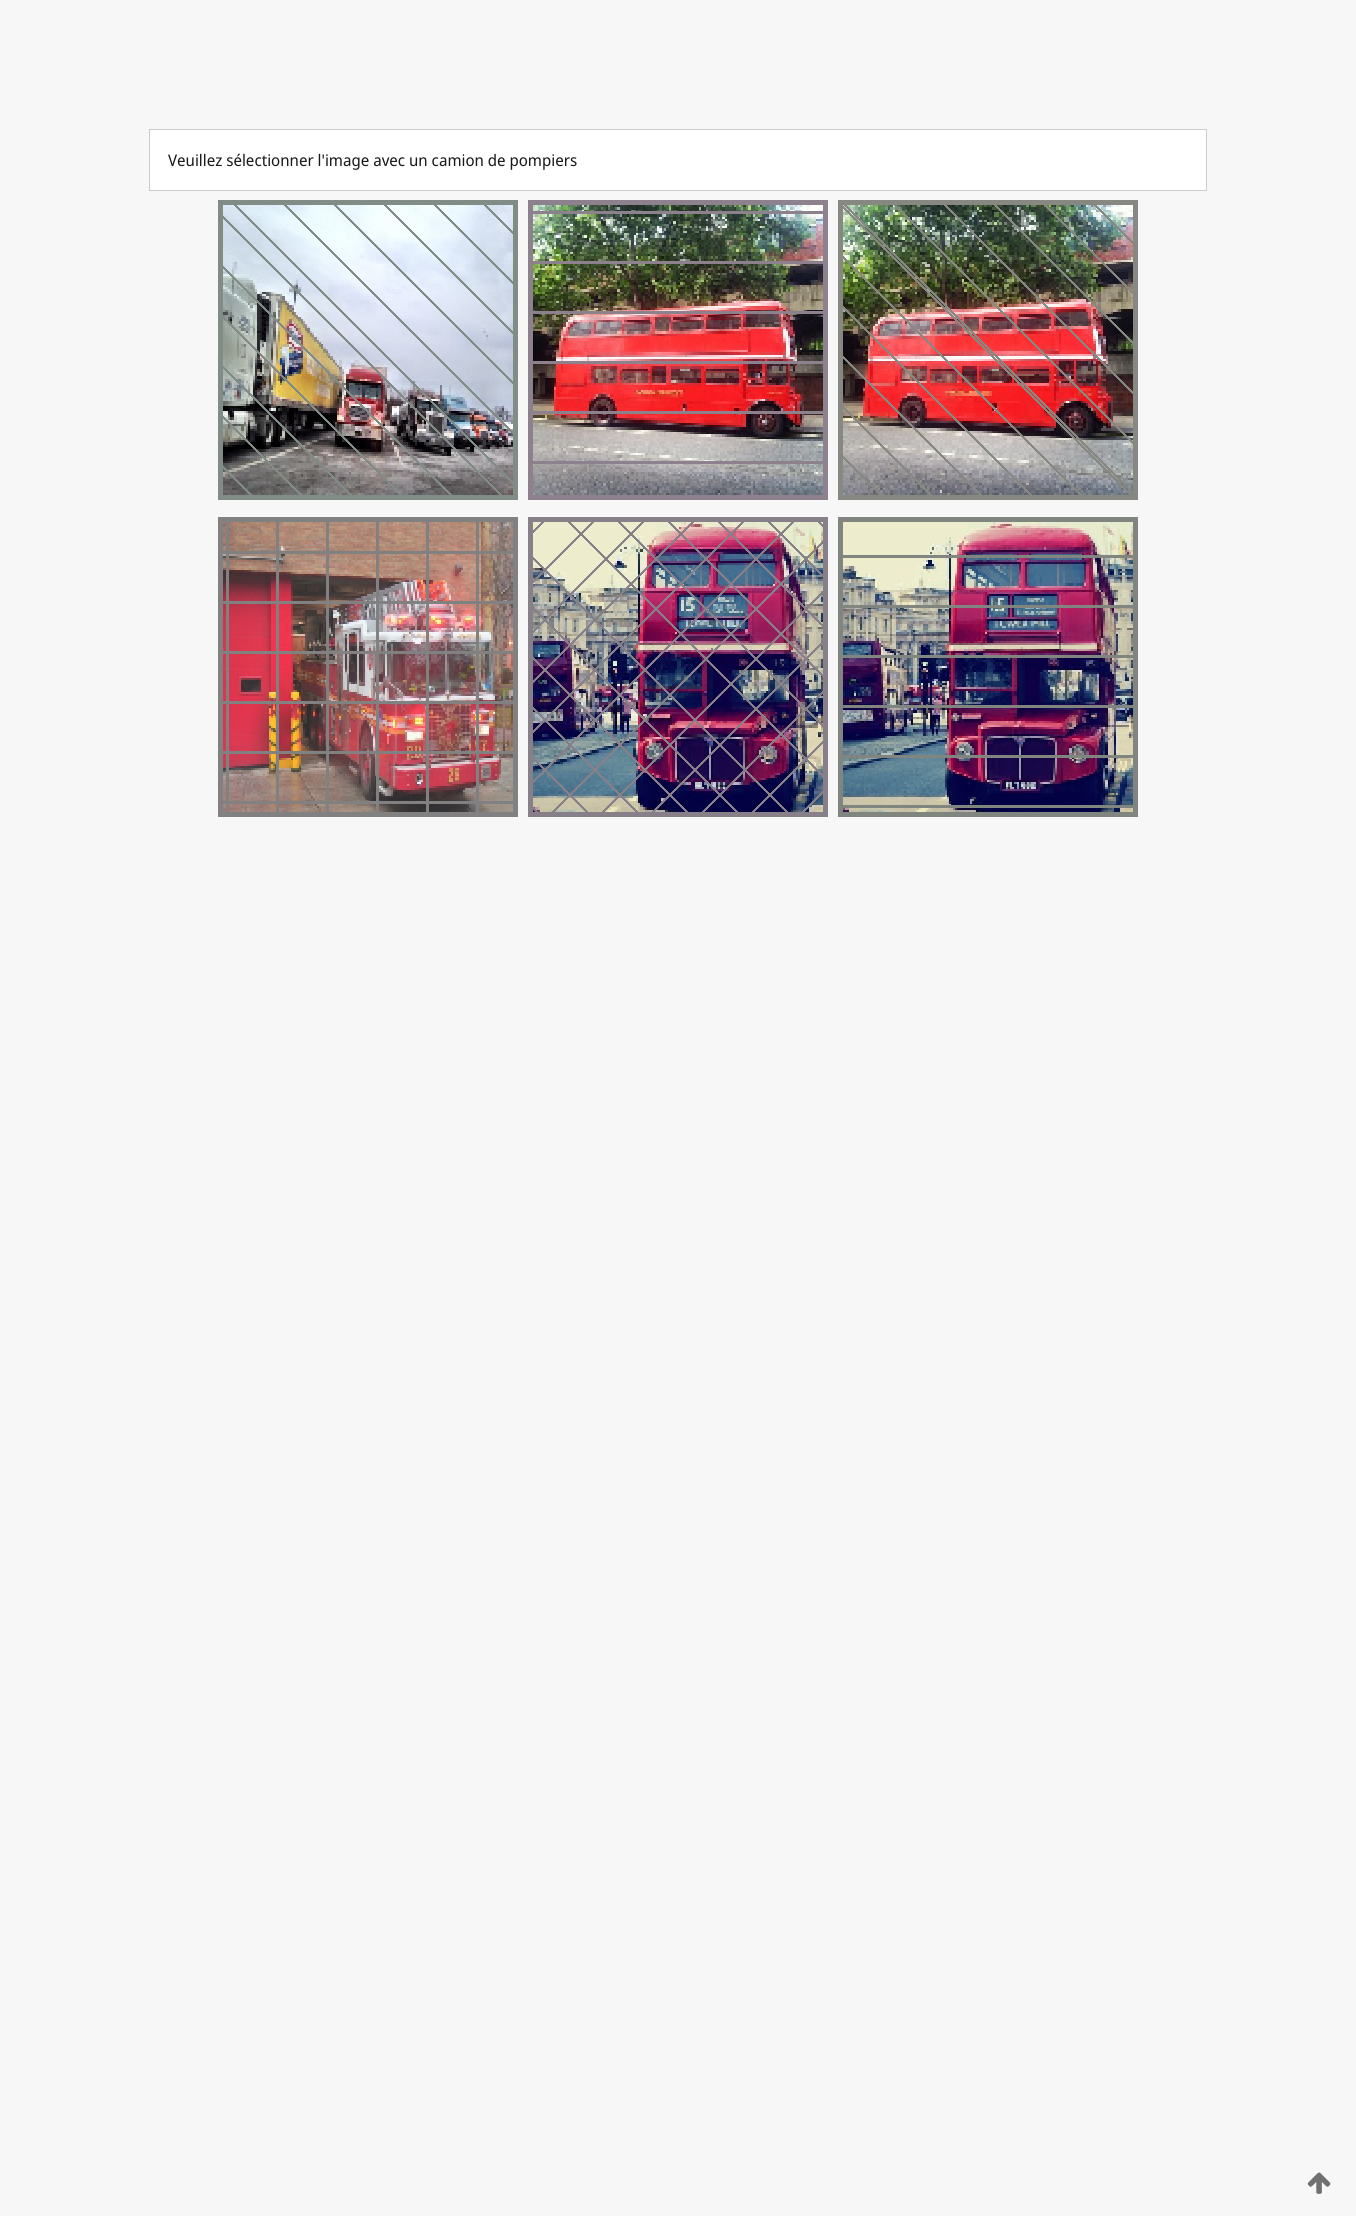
import math
import cairo



def draw_image(context, path, x, y, w, h):
    context.save()
    context.set_source_surface(cairo.ImageSurface.create_from_png(path), x, y)
    context.rectangle(x, y, w, h)
    context.fill()
    context.restore()


def draw(context):
    context.set_source_rgb(247 / 255, 247 / 255, 247 / 255)
    context.paint()
    context.set_source_rgb(1, 1, 1)
    context.rectangle(149.5, 129.5, 1057, 61)
    context.fill_preserve()
    context.set_source_rgb(204 / 255, 204 / 255, 204 / 255)
    context.set_line_width(1)
    context.stroke()
    draw_image(context, "images/1.png", 218, 200, 300, 300)
    draw_image(context, "images/2.png", 528, 200, 300, 300)
    draw_image(context, "images/3.png", 838, 200, 300, 300)
    draw_image(context, "images/4.png", 218, 517, 300, 300)
    draw_image(context, "images/5.png", 528, 517, 300, 300)
    draw_image(context, "images/6.png", 838, 517, 300, 300)
    draw_image(context, "images/7.png", 1307, 2172, 24, 22)
    context.select_font_face("Noto Sans Display")
    context.set_font_size(16)
    context.set_source_rgb(26 / 255, 26 / 255, 26 / 255)
    context.move_to(168, 166)
    context.show_text("Veuillez sélectionner l'image avec un camion de pompiers")


surface = cairo.ImageSurface(cairo.Format.RGB24, 1356, 2216)
context = cairo.Context(surface)
options = cairo.FontOptions()
options.set_hint_metrics(cairo.HintMetrics.OFF)
options.set_hint_style(cairo.HintStyle.NONE)
context.set_font_options(options)
context.set_miter_limit(4)
draw(context)
surface.write_to_png("out.png")
